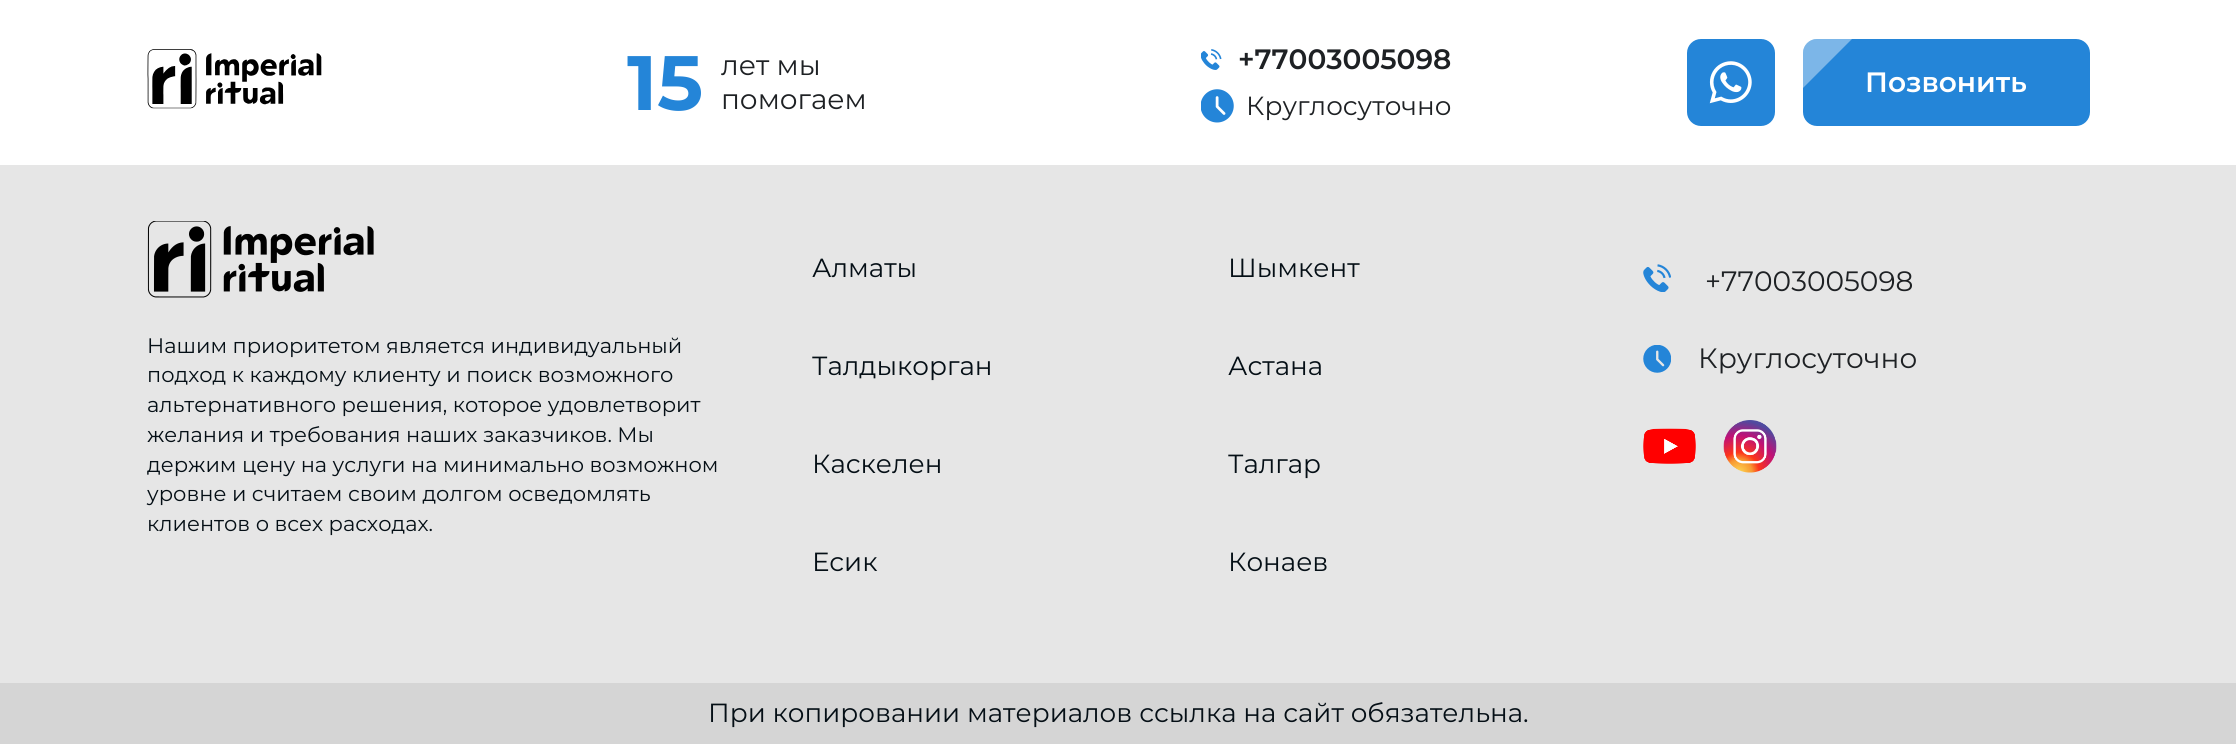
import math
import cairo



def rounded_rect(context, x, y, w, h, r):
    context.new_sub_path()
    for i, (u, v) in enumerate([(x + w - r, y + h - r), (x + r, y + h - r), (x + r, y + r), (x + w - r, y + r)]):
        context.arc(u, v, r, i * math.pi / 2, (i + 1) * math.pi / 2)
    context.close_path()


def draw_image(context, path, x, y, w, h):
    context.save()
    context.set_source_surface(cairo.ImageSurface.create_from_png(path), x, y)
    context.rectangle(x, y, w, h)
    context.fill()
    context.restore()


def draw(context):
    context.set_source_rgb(230 / 255, 230 / 255, 230 / 255)
    context.paint()
    context.set_source_rgb(1, 1, 1)
    context.rectangle(0, 0, 2236, 165)
    context.fill()
    draw_image(context, "images/1.png", 147, 49, 175, 60)
    draw_image(context, "images/2.png", 1201, 49, 21, 21)
    draw_image(context, "images/3.png", 1201, 89, 33, 34)
    context.set_source_rgb(36 / 255, 133 / 255, 216 / 255)
    rounded_rect(context, 1687, 39, 88, 87, 14)
    context.fill()
    draw_image(context, "images/4.png", 1709, 61, 43, 43)
    rounded_rect(context, 1803, 39, 287, 87, 14)
    context.fill()
    context.set_source_rgba(1, 1, 1, 0.4)
    context.new_path()
    context.move_to(1817, 39)
    context.line_to(1852, 39)
    context.line_to(1803, 88)
    context.line_to(1803, 53)
    context.curve_to(1803, 45, 1809, 39, 1817, 39)
    context.close_path()
    context.fill()
    draw_image(context, "images/5.png", 1643, 264, 28, 28)
    draw_image(context, "images/6.png", 1643, 345, 28, 28)
    draw_image(context, "images/7.png", 1643, 428, 53, 36)
    draw_image(context, "images/8.png", 1723, 420, 54, 53)
    draw_image(context, "images/9.png", 147, 221, 227, 77)
    context.set_source_rgb(213 / 255, 213 / 255, 213 / 255)
    context.rectangle(0, 683, 2236, 61)
    context.fill()
    context.select_font_face("Montserrat", cairo.FontSlant.NORMAL, cairo.FontWeight.BOLD)
    context.set_font_size(77)
    context.set_source_rgb(36 / 255, 133 / 255, 216 / 255)
    context.move_to(627, 110)
    context.show_text("15")
    context.select_font_face("Montserrat")
    context.set_font_size(28)
    context.set_source_rgb(30 / 255, 33 / 255, 36 / 255)
    context.move_to(721, 75)
    context.show_text("лет мы")
    context.move_to(721, 109)
    context.show_text("помогаем")
    context.select_font_face("Montserrat SemiBold")
    context.move_to(1238, 69)
    context.show_text("+77003005098")
    context.select_font_face("Montserrat")
    context.set_font_size(26.25)
    context.move_to(1246, 115)
    context.show_text("Круглосуточно")
    context.select_font_face("Montserrat SemiBold")
    context.set_font_size(28)
    context.set_source_rgb(1, 1, 1)
    context.move_to(1865, 92)
    context.show_text("Позвонить")
    context.select_font_face("Montserrat")
    context.set_font_size(26.25)
    context.set_source_rgb(5 / 255, 15 / 255, 22 / 255)
    context.move_to(812, 277)
    context.show_text("Алматы")
    context.move_to(1228, 277)
    context.show_text("Шымкент")
    context.move_to(812, 375)
    context.show_text("Талдыкорган")
    context.move_to(1228, 375)
    context.show_text("Астана")
    context.move_to(812, 473)
    context.show_text("Каскелен")
    context.move_to(1228, 473)
    context.show_text("Талгар")
    context.move_to(812, 571)
    context.show_text("Есик")
    context.move_to(1228, 571)
    context.show_text("Конаев")
    context.set_font_size(28)
    context.set_source_rgb(30 / 255, 33 / 255, 36 / 255)
    context.move_to(1705, 291)
    context.show_text("+77003005098")
    context.move_to(1698, 368)
    context.show_text("Круглосуточно")
    context.set_font_size(21)
    context.set_source_rgb(5 / 255, 15 / 255, 22 / 255)
    context.move_to(147, 353)
    context.show_text("Нашим приоритетом является индивидуальный")
    context.move_to(147, 382)
    context.show_text("подход к каждому клиенту и поиск возможного")
    context.move_to(147, 412)
    context.show_text("альтернативного решения, которое удовлетворит")
    context.move_to(147, 442)
    context.show_text("желания и требования наших заказчиков. Мы")
    context.move_to(147, 472)
    context.show_text("держим цену на услуги на минимально возможном")
    context.move_to(147, 501)
    context.show_text("уровне и считаем своим долгом осведомлять")
    context.move_to(147, 531)
    context.show_text("клиентов о всех расходах.")
    context.set_font_size(26.25)
    context.move_to(708, 722)
    context.show_text("При копировании материалов ссылка на сайт обязательна.")


surface = cairo.ImageSurface(cairo.Format.RGB24, 2236, 744)
context = cairo.Context(surface)
options = cairo.FontOptions()
options.set_hint_metrics(cairo.HintMetrics.OFF)
options.set_hint_style(cairo.HintStyle.NONE)
context.set_font_options(options)
context.set_miter_limit(4)
draw(context)
surface.write_to_png("out.png")
